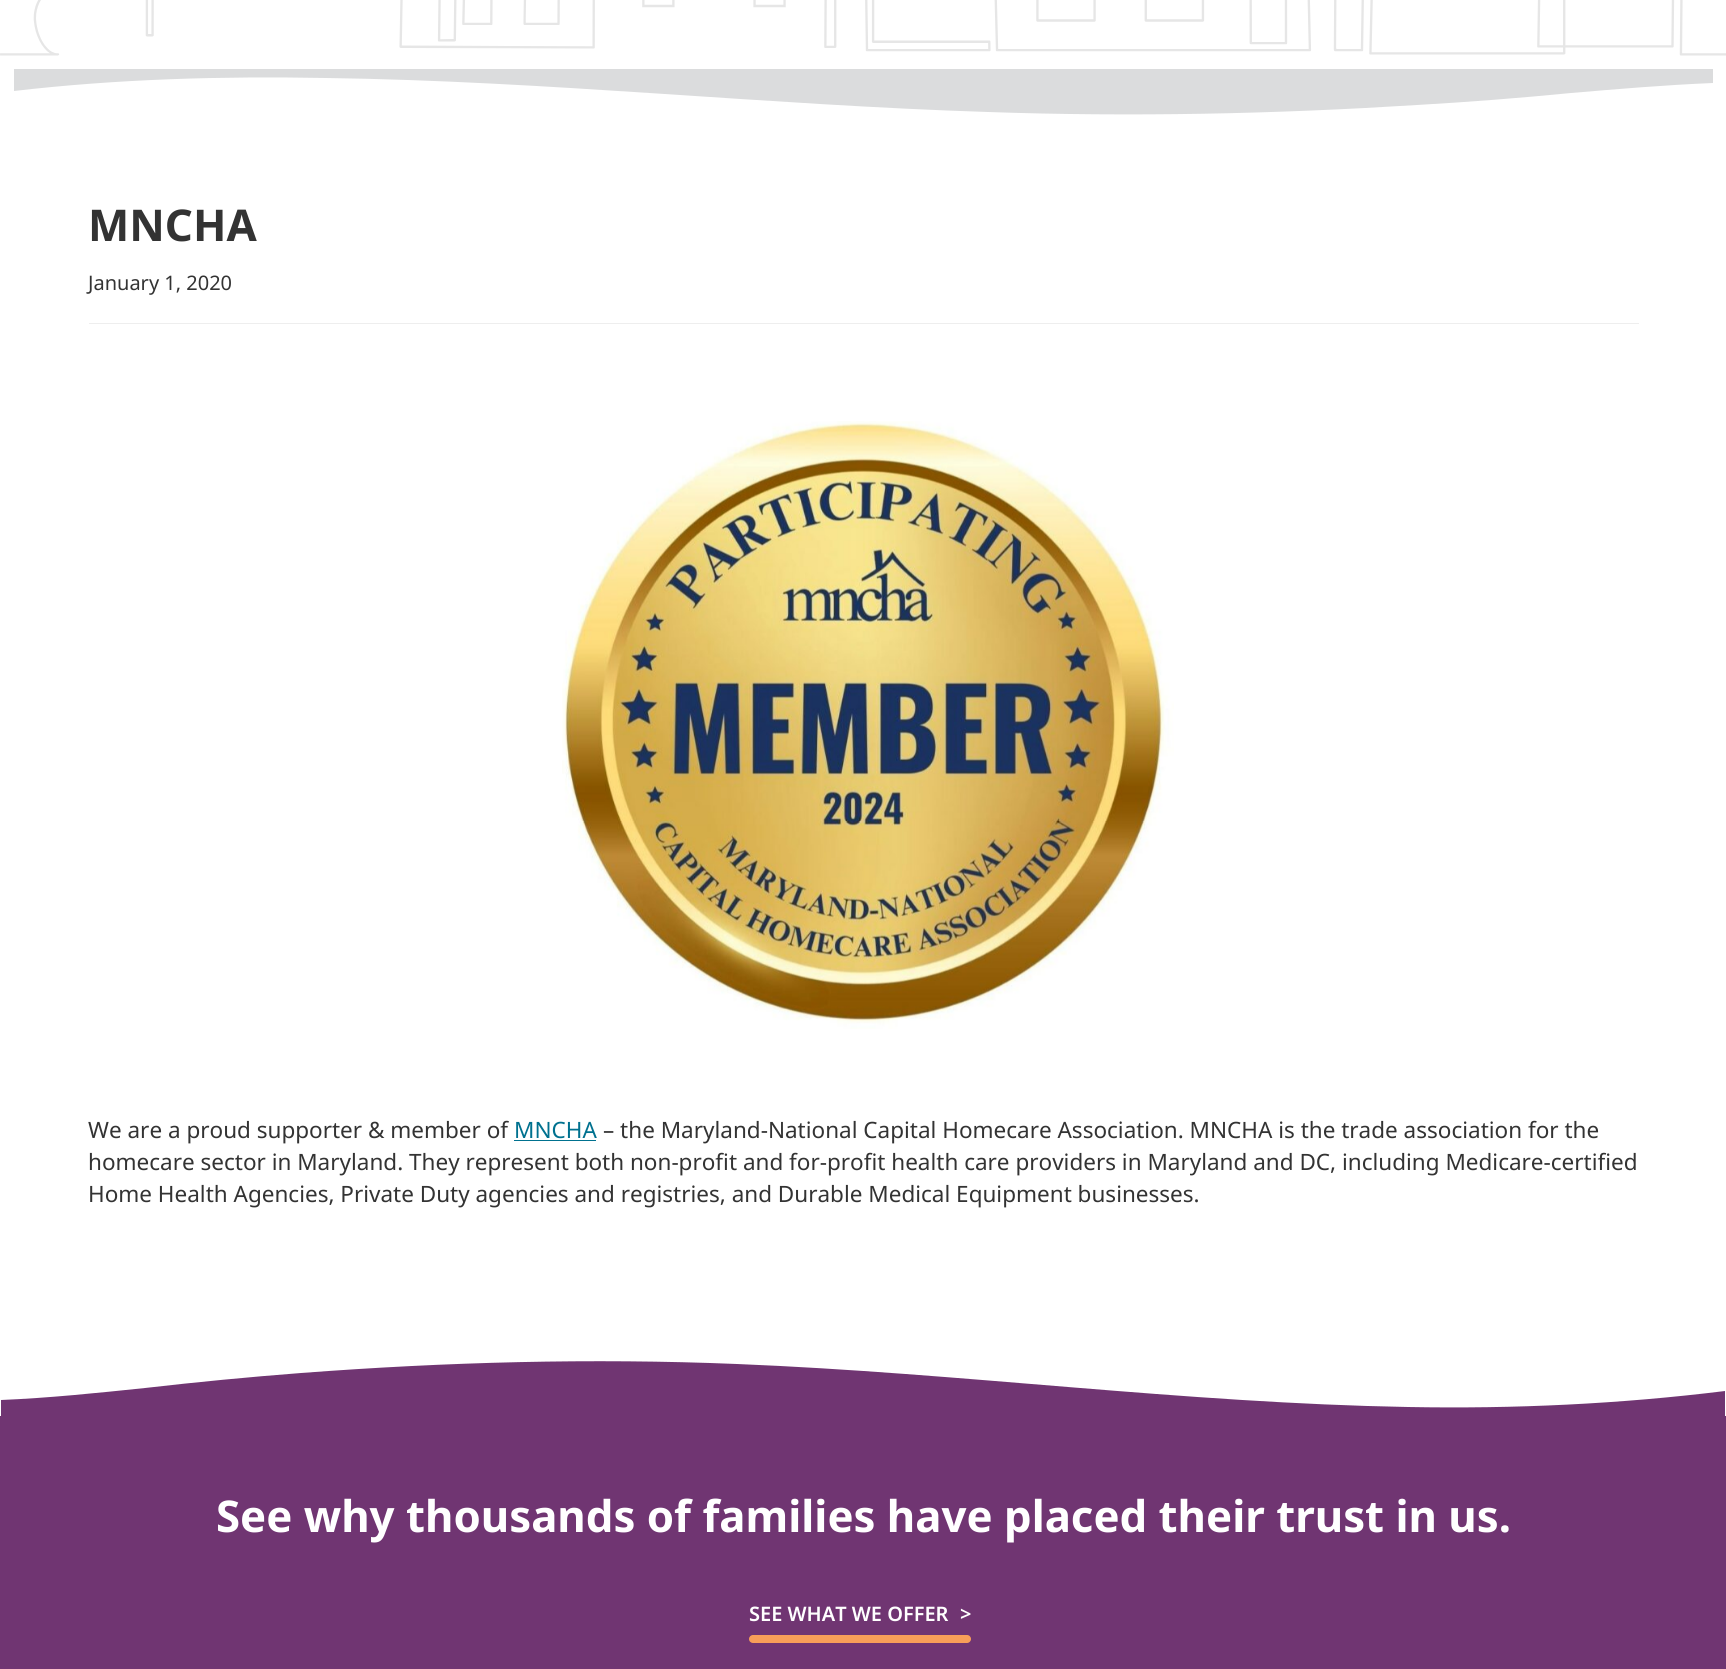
import math
import cairo



def rounded_rect(context, x, y, w, h, r):
    context.new_sub_path()
    for i, (u, v) in enumerate([(x + w - r, y + h - r), (x + r, y + h - r), (x + r, y + r), (x + w - r, y + r)]):
        context.arc(u, v, r, i * math.pi / 2, (i + 1) * math.pi / 2)
    context.close_path()


def draw_image(context, path, x, y, w, h):
    context.save()
    context.set_source_surface(cairo.ImageSurface.create_from_png(path), x, y)
    context.rectangle(x, y, w, h)
    context.fill()
    context.restore()


def draw(context):
    context.set_source_rgb(1, 1, 1)
    context.paint()
    draw_image(context, "images/1.png", 0, 0, 1726, 56)
    context.set_source_rgb(219 / 255, 220 / 255, 221 / 255)
    context.set_fill_rule(cairo.FillRule.EVEN_ODD)
    context.new_path()
    context.move_to(14, 69)
    context.line_to(1713, 69)
    context.line_to(1713, 83)
    context.curve_to(1665, 85, 1618, 89, 1571, 93)
    context.curve_to(1520, 98, 1469, 102, 1417, 105)
    context.curve_to(1274, 114, 1131, 117, 988, 112)
    context.curve_to(767, 105, 547, 81, 326, 78)
    context.curve_to(222, 76, 117, 79, 14, 91)
    context.close_path()
    context.fill()
    context.set_source_rgb(238 / 255, 238 / 255, 238 / 255)
    context.rectangle(89, 323, 1550, 1)
    context.fill()
    draw_image(context, "images/2.png", 562, 421, 612, 608)
    context.set_source_rgb(0, 113 / 255, 143 / 255)
    context.rectangle(514, 1140, 82, 1)
    context.fill()
    context.set_source_rgb(112 / 255, 53 / 255, 114 / 255)
    context.rectangle(0, 1416, 1726, 253)
    context.fill()
    context.new_path()
    context.move_to(1725, 1417)
    context.line_to(1, 1417)
    context.line_to(1, 1400)
    context.curve_to(49, 1398, 97, 1393, 145, 1388)
    context.curve_to(197, 1382, 249, 1377, 301, 1373)
    context.curve_to(446, 1362, 591, 1358, 737, 1364)
    context.curve_to(961, 1373, 1184, 1403, 1408, 1407)
    context.curve_to(1514, 1409, 1620, 1404, 1725, 1391)
    context.close_path()
    context.fill()
    context.set_source_rgb(248 / 255, 158 / 255, 89 / 255)
    rounded_rect(context, 749, 1635, 222, 8, 4)
    context.fill()
    context.select_font_face("Noto Sans", cairo.FontSlant.NORMAL, cairo.FontWeight.BOLD)
    context.set_font_size(43.75)
    context.set_source_rgb(51 / 255, 51 / 255, 51 / 255)
    context.move_to(88, 241)
    context.show_text("MNCHA")
    context.select_font_face("Noto Sans")
    context.set_font_size(20)
    context.move_to(88, 290)
    context.show_text("January 1, 2020")
    context.set_font_size(22.5)
    context.move_to(88, 1138)
    context.show_text("We are a proud supporter & member of")
    context.set_source_rgb(0, 113 / 255, 143 / 255)
    context.move_to(514, 1138)
    context.show_text("MNCHA")
    context.set_source_rgb(51 / 255, 51 / 255, 51 / 255)
    context.move_to(603, 1138)
    context.show_text("– the Maryland-National Capital Homecare Association. MNCHA is the trade association for the")
    context.move_to(88, 1170)
    context.show_text("homecare sector in Maryland. They represent both non-profit and for-profit health care providers in Maryland and DC, including Medicare-certified")
    context.move_to(88, 1202)
    context.show_text("Home Health Agencies, Private Duty agencies and registries, and Durable Medical Equipment businesses.")
    context.select_font_face("Noto Sans", cairo.FontSlant.NORMAL, cairo.FontWeight.BOLD)
    context.set_font_size(43.75)
    context.set_source_rgb(1, 1, 1)
    context.move_to(216, 1532)
    context.show_text("See why thousands of families have placed their trust in us.")
    context.select_font_face("Noto Sans SemiBold")
    context.set_font_size(20)
    context.move_to(749, 1621)
    context.show_text("SEE WHAT WE OFFER")
    context.move_to(960, 1621)
    context.show_text(">")


surface = cairo.ImageSurface(cairo.Format.RGB24, 1726, 1669)
context = cairo.Context(surface)
options = cairo.FontOptions()
options.set_hint_metrics(cairo.HintMetrics.OFF)
options.set_hint_style(cairo.HintStyle.NONE)
context.set_font_options(options)
context.set_miter_limit(4)
draw(context)
surface.write_to_png("out.png")
